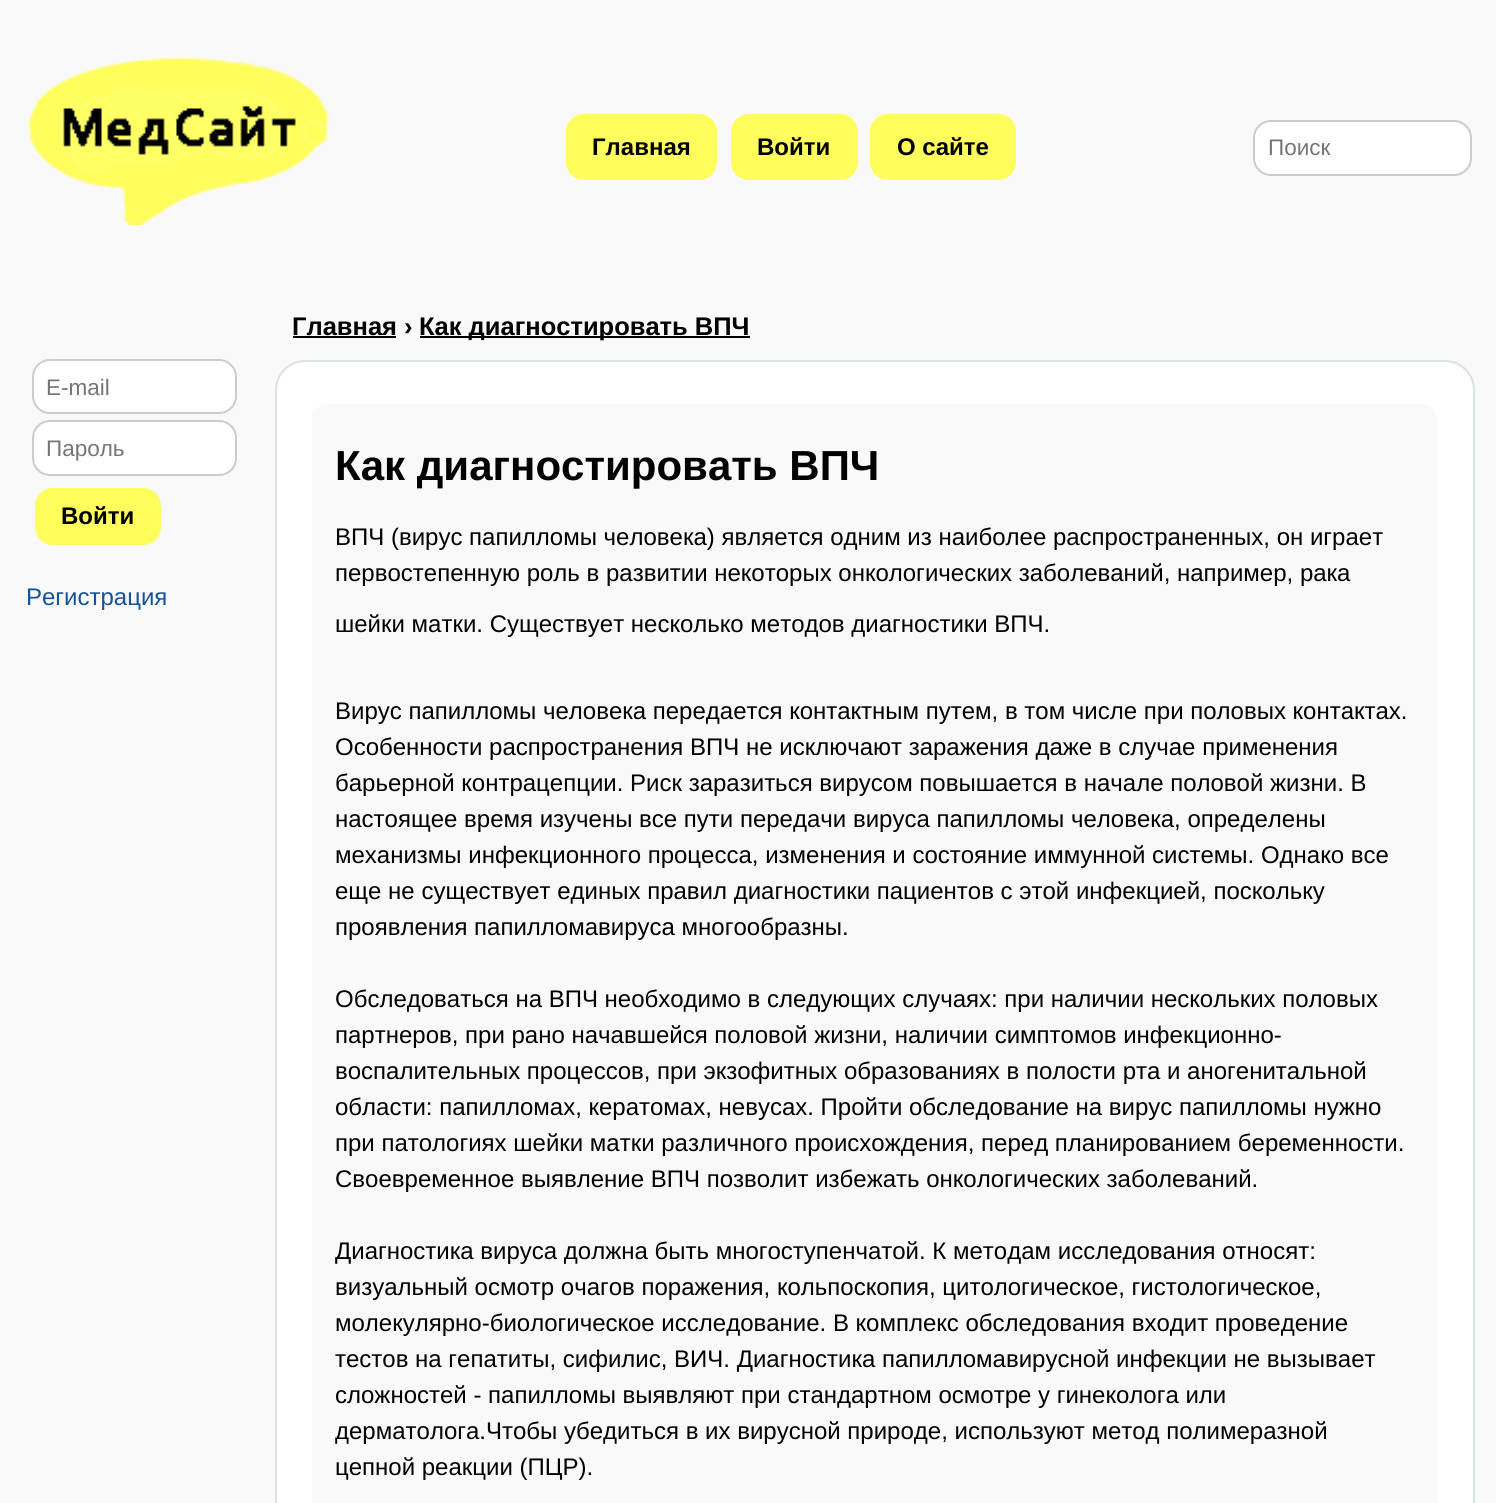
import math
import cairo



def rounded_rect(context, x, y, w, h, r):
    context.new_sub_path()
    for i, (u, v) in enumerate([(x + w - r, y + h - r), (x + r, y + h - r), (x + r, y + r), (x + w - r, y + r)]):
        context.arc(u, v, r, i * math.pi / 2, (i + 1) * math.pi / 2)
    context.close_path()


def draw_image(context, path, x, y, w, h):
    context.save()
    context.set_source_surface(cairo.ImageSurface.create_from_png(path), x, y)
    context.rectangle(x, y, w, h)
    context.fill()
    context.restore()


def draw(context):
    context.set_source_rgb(249 / 255, 249 / 255, 249 / 255)
    context.paint()
    draw_image(context, "images/1.png", 28, 58, 301, 167)
    context.set_source_rgb(1, 254 / 255, 92 / 255)
    rounded_rect(context, 566, 114, 151, 66, 18)
    context.fill()
    rounded_rect(context, 731, 114, 127, 66, 18)
    context.fill()
    rounded_rect(context, 870, 114, 146, 66, 18)
    context.fill()
    context.set_source_rgb(1, 1, 1)
    rounded_rect(context, 1254, 121, 217, 54, 17)
    context.fill_preserve()
    context.set_source_rgb(204 / 255, 204 / 255, 204 / 255)
    context.stroke()
    context.set_source_rgb(1, 1, 1)
    rounded_rect(context, 33, 360, 203, 53, 17)
    context.fill_preserve()
    context.set_source_rgb(204 / 255, 204 / 255, 204 / 255)
    context.stroke()
    context.set_source_rgb(1, 1, 1)
    rounded_rect(context, 33, 421, 203, 54, 17)
    context.fill_preserve()
    context.set_source_rgb(204 / 255, 204 / 255, 204 / 255)
    context.stroke()
    context.set_source_rgb(1, 254 / 255, 92 / 255)
    rounded_rect(context, 35, 488, 126, 57, 18)
    context.fill()
    context.set_source_rgb(0, 0, 0)
    context.rectangle(293, 336, 103, 2)
    context.fill()
    context.rectangle(420, 336, 330, 2)
    context.fill()
    context.set_source_rgb(1, 1, 1)
    rounded_rect(context, 276, 361, 1198, 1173, 29)
    context.fill_preserve()
    context.set_source_rgb(218 / 255, 225 / 255, 232 / 255)
    context.stroke()
    context.set_source_rgb(249 / 255, 249 / 255, 249 / 255)
    rounded_rect(context, 312, 404, 1125, 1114, 15)
    context.fill()
    context.select_font_face("Liberation Sans", cairo.FontSlant.NORMAL, cairo.FontWeight.BOLD)
    context.set_font_size(24)
    context.set_source_rgb(0, 0, 0)
    context.move_to(592, 155)
    context.show_text("Главная")
    context.move_to(757, 155)
    context.show_text("Войти")
    context.move_to(897, 155)
    context.show_text("О сайте")
    context.select_font_face("Liberation Sans")
    context.set_font_size(22.5)
    context.set_source_rgb(117 / 255, 117 / 255, 117 / 255)
    context.move_to(1268, 155)
    context.show_text("Поиск")
    context.move_to(46, 395)
    context.show_text("E-mail")
    context.move_to(46, 456)
    context.show_text("Пароль")
    context.select_font_face("Liberation Sans", cairo.FontSlant.NORMAL, cairo.FontWeight.BOLD)
    context.set_font_size(24)
    context.set_source_rgb(0, 0, 0)
    context.move_to(61, 524)
    context.show_text("Войти")
    context.select_font_face("Liberation Sans")
    context.set_source_rgb(21 / 255, 82 / 255, 157 / 255)
    context.move_to(26, 605)
    context.show_text("Регистрация")
    context.select_font_face("Liberation Sans", cairo.FontSlant.NORMAL, cairo.FontWeight.BOLD)
    context.set_font_size(25.5)
    context.set_source_rgb(0, 0, 0)
    context.move_to(292, 335)
    context.show_text("Главная ›")
    context.move_to(419, 335)
    context.show_text("Как диагностировать ВПЧ")
    context.set_font_size(42)
    context.move_to(335, 480)
    context.show_text("Как диагностировать ВПЧ")
    context.select_font_face("Liberation Sans")
    context.set_font_size(24)
    context.move_to(335, 545)
    context.show_text("ВПЧ (вирус папилломы человека) является одним из наиболее распространенных, он играет")
    context.move_to(335, 581)
    context.show_text("первостепенную роль в развитии некоторых онкологических заболеваний, например, рака")
    context.move_to(335, 632)
    context.show_text("шейки матки. Существует несколько методов диагностики ВПЧ.")
    context.move_to(335, 719)
    context.show_text("Вирус папилломы человека передается контактным путем, в том числе при половых контактах.")
    context.move_to(335, 755)
    context.show_text("Особенности распространения ВПЧ не исключают заражения даже в случае применения")
    context.move_to(335, 791)
    context.show_text("барьерной контрацепции. Риск заразиться вирусом повышается в начале половой жизни. В")
    context.move_to(335, 827)
    context.show_text("настоящее время изучены все пути передачи вируса папилломы человека, определены")
    context.move_to(335, 863)
    context.show_text("механизмы инфекционного процесса, изменения и состояние иммунной системы. Однако все")
    context.move_to(335, 899)
    context.show_text("еще не существует единых правил диагностики пациентов с этой инфекцией, поскольку")
    context.move_to(335, 935)
    context.show_text("проявления папилломавируса многообразны.")
    context.move_to(335, 1007)
    context.show_text("Обследоваться на ВПЧ необходимо в следующих случаях: при наличии нескольких половых")
    context.move_to(335, 1043)
    context.show_text("партнеров, при рано начавшейся половой жизни, наличии симптомов инфекционно-")
    context.move_to(335, 1079)
    context.show_text("воспалительных процессов, при экзофитных образованиях в полости рта и аногенитальной")
    context.move_to(335, 1115)
    context.show_text("области: папилломах, кератомах, невусах. Пройти обследование на вирус папилломы нужно")
    context.move_to(335, 1151)
    context.show_text("при патологиях шейки матки различного происхождения, перед планированием беременности.")
    context.move_to(335, 1187)
    context.show_text("Своевременное выявление ВПЧ позволит избежать онкологических заболеваний.")
    context.move_to(335, 1259)
    context.show_text("Диагностика вируса должна быть многоступенчатой. К методам исследования относят:")
    context.move_to(335, 1295)
    context.show_text("визуальный осмотр очагов поражения, кольпоскопия, цитологическое, гистологическое,")
    context.move_to(335, 1331)
    context.show_text("молекулярно-биологическое исследование. В комплекс обследования входит проведение")
    context.move_to(335, 1367)
    context.show_text("тестов на гепатиты, сифилис, ВИЧ. Диагностика папилломавирусной инфекции не вызывает")
    context.move_to(335, 1403)
    context.show_text("сложностей - папилломы выявляют при стандартном осмотре у гинеколога или")
    context.move_to(335, 1439)
    context.show_text("дерматолога.Чтобы убедиться в их вирусной природе, используют метод полимеразной")
    context.move_to(335, 1475)
    context.show_text("цепной реакции (ПЦР).")


surface = cairo.ImageSurface(cairo.Format.RGB24, 1496, 1503)
context = cairo.Context(surface)
options = cairo.FontOptions()
options.set_hint_metrics(cairo.HintMetrics.OFF)
options.set_hint_style(cairo.HintStyle.NONE)
context.set_font_options(options)
context.set_miter_limit(4)
draw(context)
surface.write_to_png("out.png")
